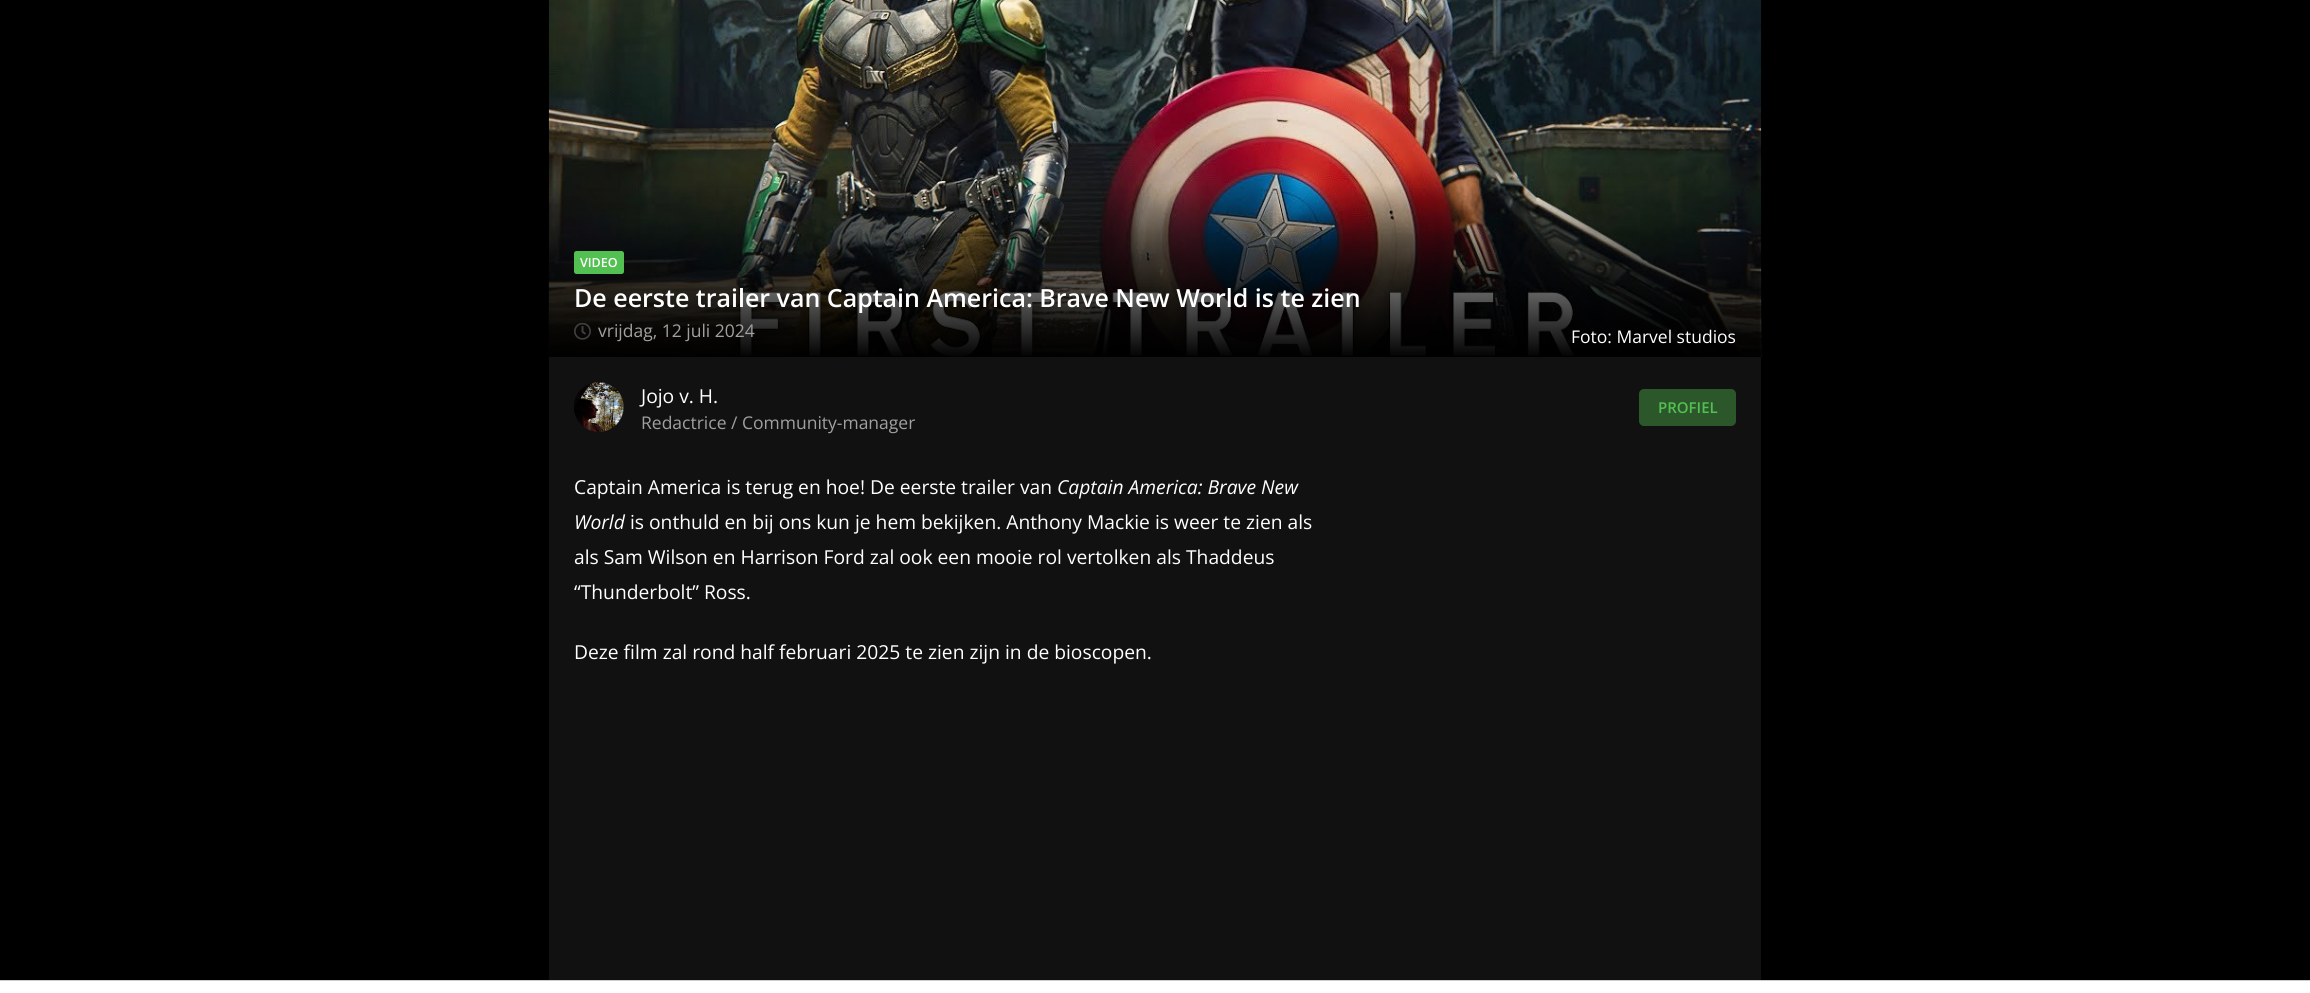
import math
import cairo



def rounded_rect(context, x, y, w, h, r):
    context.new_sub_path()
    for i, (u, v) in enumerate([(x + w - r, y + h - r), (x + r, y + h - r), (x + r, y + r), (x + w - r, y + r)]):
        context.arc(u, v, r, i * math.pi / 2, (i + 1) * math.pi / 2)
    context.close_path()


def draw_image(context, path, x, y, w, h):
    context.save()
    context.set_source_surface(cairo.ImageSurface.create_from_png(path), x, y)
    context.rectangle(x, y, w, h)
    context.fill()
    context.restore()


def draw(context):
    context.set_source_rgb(0, 0, 0)
    context.paint()
    context.set_source_rgb(17 / 255, 17 / 255, 17 / 255)
    context.rectangle(549, 357, 1212, 623)
    context.fill()
    draw_image(context, "images/1.png", 548, 0, 1214, 357)
    context.set_source_rgb(83 / 255, 192 / 255, 82 / 255)
    rounded_rect(context, 574, 251, 50, 23, 2.5)
    context.fill()
    draw_image(context, "images/2.png", 574, 323, 17, 17)
    draw_image(context, "images/3.png", 574, 382, 50, 50)
    context.set_source_rgb(43 / 255, 87 / 255, 43 / 255)
    rounded_rect(context, 1639, 389, 97, 37, 5)
    context.fill()
    context.set_source_rgb(1, 1, 1)
    context.rectangle(0, 981, 2310, 12)
    context.fill()
    context.set_source_rgb(204 / 255, 204 / 255, 204 / 255)
    context.rectangle(0, 980, 2310, 1)
    context.fill()
    context.select_font_face("Open Sans SemiBold")
    context.set_font_size(12.5)
    context.set_source_rgb(1, 1, 1)
    context.move_to(580, 267)
    context.show_text("VIDEO")
    context.set_font_size(25)
    context.move_to(574, 307)
    context.show_text("De eerste trailer van Captain America: Brave New World is te zien")
    context.select_font_face("Open Sans")
    context.set_font_size(17.5)
    context.set_source_rgb(160 / 255, 160 / 255, 160 / 255)
    context.move_to(598, 337)
    context.show_text("vrijdag, 12 juli 2024")
    context.set_source_rgb(1, 1, 1)
    context.move_to(1571, 343)
    context.show_text("Foto: Marvel studios")
    context.set_font_size(19.25)
    context.move_to(641, 403)
    context.show_text("Jojo v. H.")
    context.set_font_size(17.5)
    context.set_source_rgb(160 / 255, 160 / 255, 160 / 255)
    context.move_to(641, 429)
    context.show_text("Redactrice / Community-manager")
    context.select_font_face("Open Sans SemiBold")
    context.set_font_size(15)
    context.set_source_rgb(83 / 255, 192 / 255, 82 / 255)
    context.move_to(1658, 413)
    context.show_text("PROFIEL")
    context.select_font_face("Open Sans")
    context.set_font_size(19.25)
    context.set_source_rgb(1, 1, 1)
    context.move_to(574, 494)
    context.show_text("Captain America is terug en hoe! De eerste trailer van")
    context.select_font_face("Open Sans", cairo.FontSlant.ITALIC)
    context.move_to(1057, 494)
    context.show_text("Captain America: Brave New")
    context.move_to(574, 529)
    context.show_text("World")
    context.select_font_face("Open Sans")
    context.move_to(630, 529)
    context.show_text("is onthuld en bij ons kun je hem bekijken. Anthony Mackie is weer te zien als")
    context.move_to(574, 564)
    context.show_text("als Sam Wilson en Harrison Ford zal ook een mooie rol vertolken als Thaddeus")
    context.move_to(574, 599)
    context.show_text("“Thunderbolt” Ross.")
    context.move_to(574, 659)
    context.show_text("Deze film zal rond half februari 2025 te zien zijn in de bioscopen.")


surface = cairo.ImageSurface(cairo.Format.RGB24, 2310, 993)
context = cairo.Context(surface)
options = cairo.FontOptions()
options.set_hint_metrics(cairo.HintMetrics.OFF)
options.set_hint_style(cairo.HintStyle.NONE)
context.set_font_options(options)
context.set_miter_limit(4)
draw(context)
surface.write_to_png("out.png")
